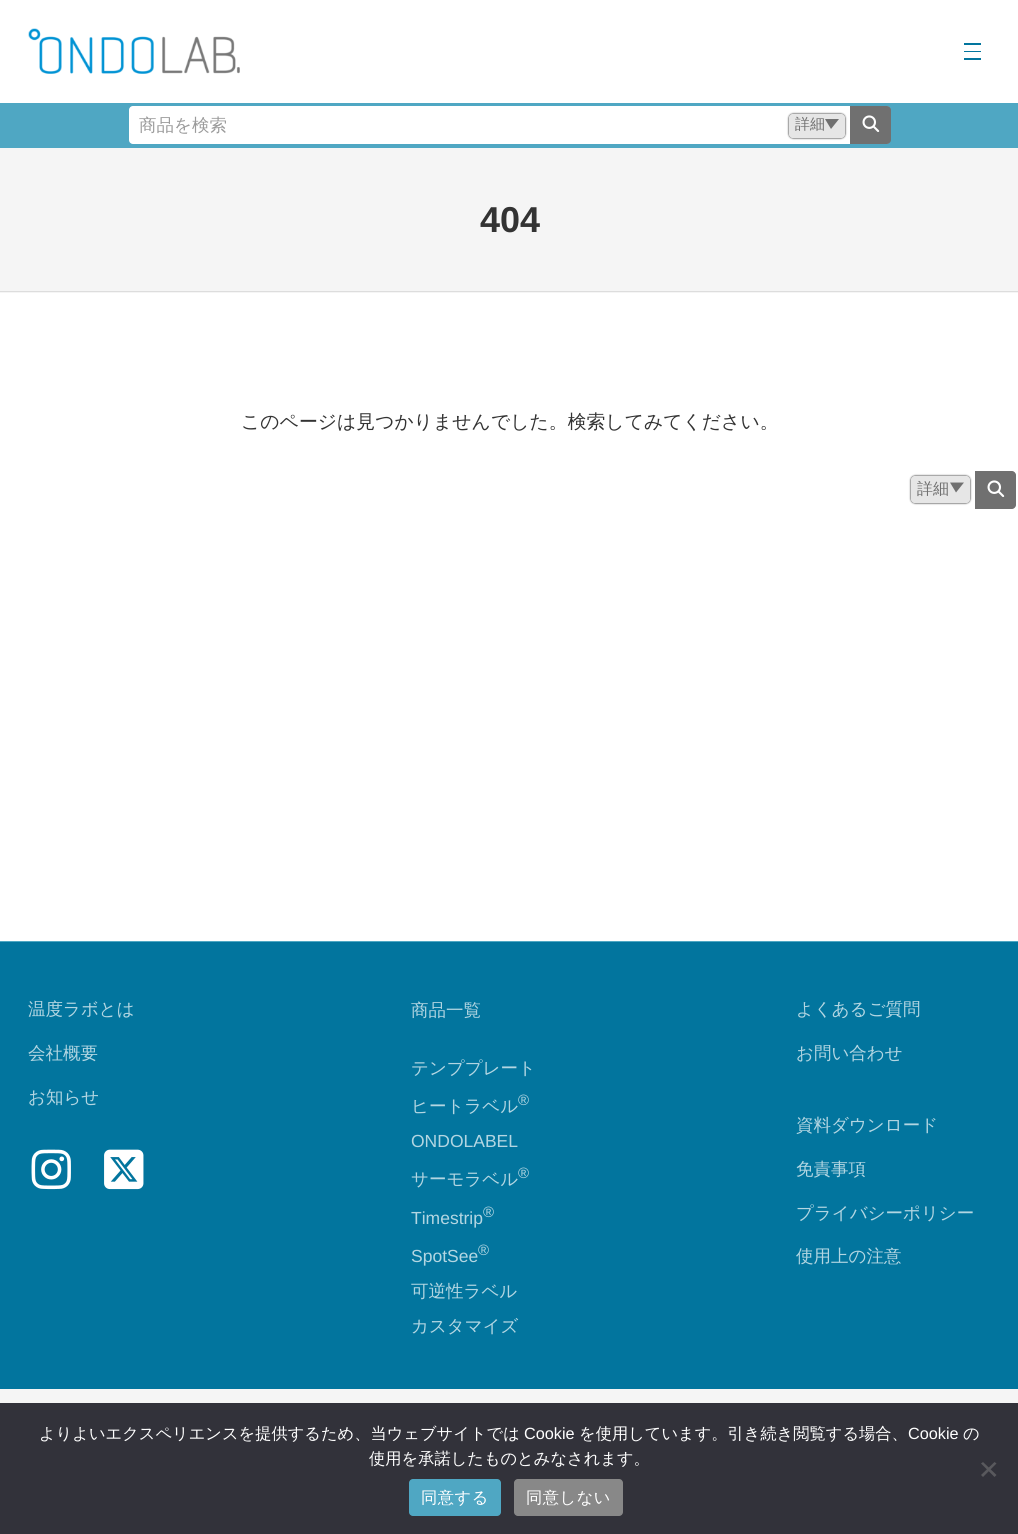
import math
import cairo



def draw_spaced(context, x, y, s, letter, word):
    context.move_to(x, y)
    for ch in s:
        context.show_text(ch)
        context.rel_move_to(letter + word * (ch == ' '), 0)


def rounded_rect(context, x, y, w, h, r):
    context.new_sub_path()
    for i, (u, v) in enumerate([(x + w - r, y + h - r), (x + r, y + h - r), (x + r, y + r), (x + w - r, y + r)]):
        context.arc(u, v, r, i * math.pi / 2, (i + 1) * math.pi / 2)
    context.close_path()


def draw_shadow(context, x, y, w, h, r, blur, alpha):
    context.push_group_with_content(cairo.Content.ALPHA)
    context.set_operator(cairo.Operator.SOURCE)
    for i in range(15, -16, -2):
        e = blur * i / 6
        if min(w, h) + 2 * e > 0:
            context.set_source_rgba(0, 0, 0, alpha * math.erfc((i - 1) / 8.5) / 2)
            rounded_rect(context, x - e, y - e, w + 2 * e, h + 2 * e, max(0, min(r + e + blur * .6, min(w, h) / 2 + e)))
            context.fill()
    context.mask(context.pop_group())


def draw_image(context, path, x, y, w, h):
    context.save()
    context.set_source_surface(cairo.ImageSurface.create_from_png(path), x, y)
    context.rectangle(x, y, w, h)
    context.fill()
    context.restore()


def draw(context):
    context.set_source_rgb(1, 1, 1)
    context.paint()
    draw_image(context, "images/1.png", 28, 28, 212, 46)
    context.set_source_rgb(2 / 255, 117 / 255, 158 / 255)
    context.rectangle(964, 43, 17, 2)
    context.fill()
    context.rectangle(964, 51, 17, 1)
    context.fill()
    context.rectangle(964, 58, 17, 2)
    context.fill()
    context.set_source_rgb(79 / 255, 167 / 255, 195 / 255)
    context.rectangle(0, 103, 1018, 45)
    context.fill()
    context.set_source_rgb(1, 1, 1)
    rounded_rect(context, 129, 106, 761, 38, 4)
    context.fill()
    context.save()
    context.set_fill_rule(cairo.FillRule.EVEN_ODD)
    context.new_path()
    context.move_to(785, 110)
    context.line_to(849, 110)
    context.line_to(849, 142)
    context.line_to(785, 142)
    context.close_path()
    context.move_to(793, 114)
    context.line_to(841, 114)
    context.curve_to(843, 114, 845, 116, 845, 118)
    context.line_to(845, 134)
    context.curve_to(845, 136, 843, 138, 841, 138)
    context.line_to(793, 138)
    context.curve_to(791, 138, 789, 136, 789, 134)
    context.line_to(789, 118)
    context.curve_to(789, 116, 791, 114, 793, 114)
    context.close_path()
    context.clip()
    context.set_source_rgb(0, 0, 0)
    draw_shadow(context, 789, 114, 56, 24, 4, 1, 1)
    context.restore()
    context.set_source_rgba(0, 0, 0, 0.1)
    rounded_rect(context, 789, 114, 56, 24, 4)
    context.fill()
    context.set_source_rgb(112 / 255, 112 / 255, 112 / 255)
    context.new_path()
    context.move_to(825, 119)
    context.line_to(839, 119)
    context.line_to(831, 129)
    context.close_path()
    context.fill()
    context.new_path()
    context.move_to(850, 106)
    context.line_to(887, 106)
    context.curve_to(889, 106, 891, 108, 891, 110)
    context.line_to(891, 140)
    context.curve_to(891, 142, 889, 144, 887, 144)
    context.line_to(850, 144)
    context.close_path()
    context.fill()
    draw_image(context, "images/2.png", 862, 115, 18, 17)
    context.set_source_rgb(245 / 255, 245 / 255, 245 / 255)
    context.rectangle(0, 148, 1018, 145)
    context.fill()
    context.set_source_rgb(221 / 255, 221 / 255, 221 / 255)
    context.rectangle(0, 291, 1018, 1)
    context.fill()
    context.save()
    context.set_fill_rule(cairo.FillRule.EVEN_ODD)
    context.new_path()
    context.move_to(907, 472)
    context.line_to(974, 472)
    context.line_to(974, 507)
    context.line_to(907, 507)
    context.close_path()
    context.move_to(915, 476)
    context.line_to(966, 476)
    context.curve_to(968, 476, 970, 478, 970, 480)
    context.line_to(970, 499)
    context.curve_to(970, 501, 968, 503, 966, 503)
    context.line_to(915, 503)
    context.curve_to(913, 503, 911, 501, 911, 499)
    context.line_to(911, 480)
    context.curve_to(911, 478, 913, 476, 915, 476)
    context.close_path()
    context.clip()
    context.set_source_rgb(0, 0, 0)
    draw_shadow(context, 911, 476, 59, 27, 4, 1, 1)
    context.restore()
    context.set_source_rgba(0, 0, 0, 0.1)
    rounded_rect(context, 911, 476, 59, 27, 4)
    context.fill()
    context.set_source_rgb(112 / 255, 112 / 255, 112 / 255)
    context.new_path()
    context.move_to(950, 482.5)
    context.line_to(964, 482.5)
    context.line_to(956, 492.5)
    context.close_path()
    context.fill()
    context.new_path()
    context.move_to(975, 471)
    context.line_to(1012, 471)
    context.curve_to(1014, 471, 1016, 473, 1016, 475)
    context.line_to(1016, 505)
    context.curve_to(1016, 507, 1014, 509, 1012, 509)
    context.line_to(975, 509)
    context.close_path()
    context.fill()
    draw_image(context, "images/2.png", 987, 480, 18, 17)
    context.set_source_rgb(2 / 255, 117 / 255, 158 / 255)
    context.rectangle(0, 942, 1018, 447)
    context.fill()
    context.set_source_rgb(79 / 255, 167 / 255, 195 / 255)
    context.rectangle(0, 941, 1018, 1)
    context.fill()
    draw_image(context, "images/3.png", 31, 1149, 40, 41)
    draw_image(context, "images/4.png", 104, 1149, 40, 41)
    context.set_source_rgb(245 / 255, 245 / 255, 245 / 255)
    context.rectangle(0, 1389, 1018, 14)
    context.fill()
    context.set_source_rgb(50 / 255, 50 / 255, 58 / 255)
    context.rectangle(0, 1403, 1018, 131)
    context.fill()
    context.set_source_rgb(89 / 255, 89 / 255, 93 / 255)
    context.new_path()
    context.move_to(994.5, 1462)
    context.line_to(996.5, 1463.5)
    context.line_to(983, 1477)
    context.line_to(981, 1475)
    context.close_path()
    context.fill()
    context.new_path()
    context.move_to(981, 1463.5)
    context.line_to(983, 1462)
    context.line_to(996.5, 1475)
    context.line_to(994.5, 1477)
    context.close_path()
    context.fill()
    context.set_source_rgb(79 / 255, 167 / 255, 195 / 255)
    rounded_rect(context, 409, 1479, 92, 37, 4)
    context.fill()
    context.set_source_rgb(136 / 255, 136 / 255, 136 / 255)
    rounded_rect(context, 514, 1479, 109, 37, 4)
    context.fill()
    context.select_font_face("WenQuanYi Zen Hei Medium")
    context.set_font_size(17.5)
    context.set_source_rgb(155 / 255, 155 / 255, 155 / 255)
    context.move_to(139, 131)
    context.show_text("商品を検索")
    context.set_font_size(15)
    context.set_source_rgb(112 / 255, 112 / 255, 112 / 255)
    context.move_to(795, 129)
    context.show_text("詳細")
    context.select_font_face("Liberation Sans", cairo.FontSlant.NORMAL, cairo.FontWeight.BOLD)
    context.set_font_size(36)
    context.set_source_rgb(51 / 255, 51 / 255, 51 / 255)
    context.move_to(480, 232)
    context.show_text("404")
    context.select_font_face("WenQuanYi Zen Hei Medium")
    context.set_font_size(18.85)
    context.move_to(241, 428)
    context.show_text("このページは見つかりませんでした。検索してみてください。")
    context.set_font_size(16)
    context.set_source_rgb(112 / 255, 112 / 255, 112 / 255)
    context.move_to(917, 494)
    context.show_text("詳細")
    context.set_font_size(17.5)
    context.set_source_rgb(179 / 255, 214 / 255, 226 / 255)
    context.move_to(28, 1015)
    context.show_text("温度ラボとは")
    context.move_to(28, 1059)
    context.show_text("会社概要")
    context.move_to(28, 1103)
    context.show_text("お知らせ")
    context.move_to(411, 1016)
    context.show_text("商品一覧")
    context.move_to(411, 1074)
    context.show_text("テンププレート")
    context.move_to(411, 1112)
    context.show_text("ヒートラベル")
    context.select_font_face("Liberation Sans")
    context.set_font_size(15)
    context.move_to(518, 1105)
    context.show_text("®")
    context.set_font_size(17.5)
    context.move_to(411, 1147)
    context.show_text("ONDOLABEL")
    context.select_font_face("WenQuanYi Zen Hei Medium")
    context.move_to(411, 1185)
    context.show_text("サーモラベル")
    context.select_font_face("Liberation Sans")
    context.set_font_size(15)
    context.move_to(518, 1178)
    context.show_text("®")
    context.set_font_size(17.5)
    context.move_to(411, 1224)
    context.show_text("Timestrip")
    context.set_font_size(15)
    context.move_to(483, 1217)
    context.show_text("®")
    context.set_font_size(17.5)
    context.move_to(411, 1262)
    context.show_text("SpotSee")
    context.set_font_size(15)
    context.move_to(478, 1255)
    context.show_text("®")
    context.select_font_face("WenQuanYi Zen Hei Medium")
    context.set_font_size(17.5)
    context.move_to(411, 1297)
    context.show_text("可逆性ラベル")
    context.move_to(411, 1332)
    context.show_text("カスタマイズ")
    context.move_to(796, 1015)
    context.show_text("よくあるご質問")
    context.move_to(796, 1059)
    context.show_text("お問い合わせ")
    context.move_to(796, 1131)
    context.show_text("資料ダウンロード")
    context.move_to(796, 1175)
    context.show_text("免責事項")
    context.move_to(796, 1219)
    context.show_text("プライバシーポリシー")
    context.move_to(796, 1262)
    context.show_text("使用上の注意")
    context.set_font_size(16.25)
    context.set_source_rgb(1, 1, 1)
    context.move_to(39, 1439)
    context.show_text("よりよいエクスペリエンスを提供するため、当ウェブサイトでは")
    context.select_font_face("Liberation Sans")
    context.move_to(524, 1439)
    context.show_text("Cookie")
    context.select_font_face("WenQuanYi Zen Hei Medium")
    context.move_to(579, 1439)
    context.show_text("を使用しています。引き続き閲覧する場合、")
    context.select_font_face("Liberation Sans")
    context.move_to(908, 1439)
    context.show_text("Cookie")
    context.select_font_face("WenQuanYi Zen Hei Medium")
    context.move_to(963, 1439)
    context.show_text("の")
    context.move_to(369, 1464)
    context.show_text("使用を承諾したものとみなされます。")
    draw_spaced(context, 421, 1503, "同意する", 0.5, 0)
    draw_spaced(context, 526, 1503, "同意しない", 0.5, 0)


surface = cairo.ImageSurface(cairo.Format.RGB24, 1018, 1534)
context = cairo.Context(surface)
options = cairo.FontOptions()
options.set_hint_metrics(cairo.HintMetrics.OFF)
options.set_hint_style(cairo.HintStyle.NONE)
context.set_font_options(options)
context.set_miter_limit(4)
draw(context)
surface.write_to_png("out.png")
